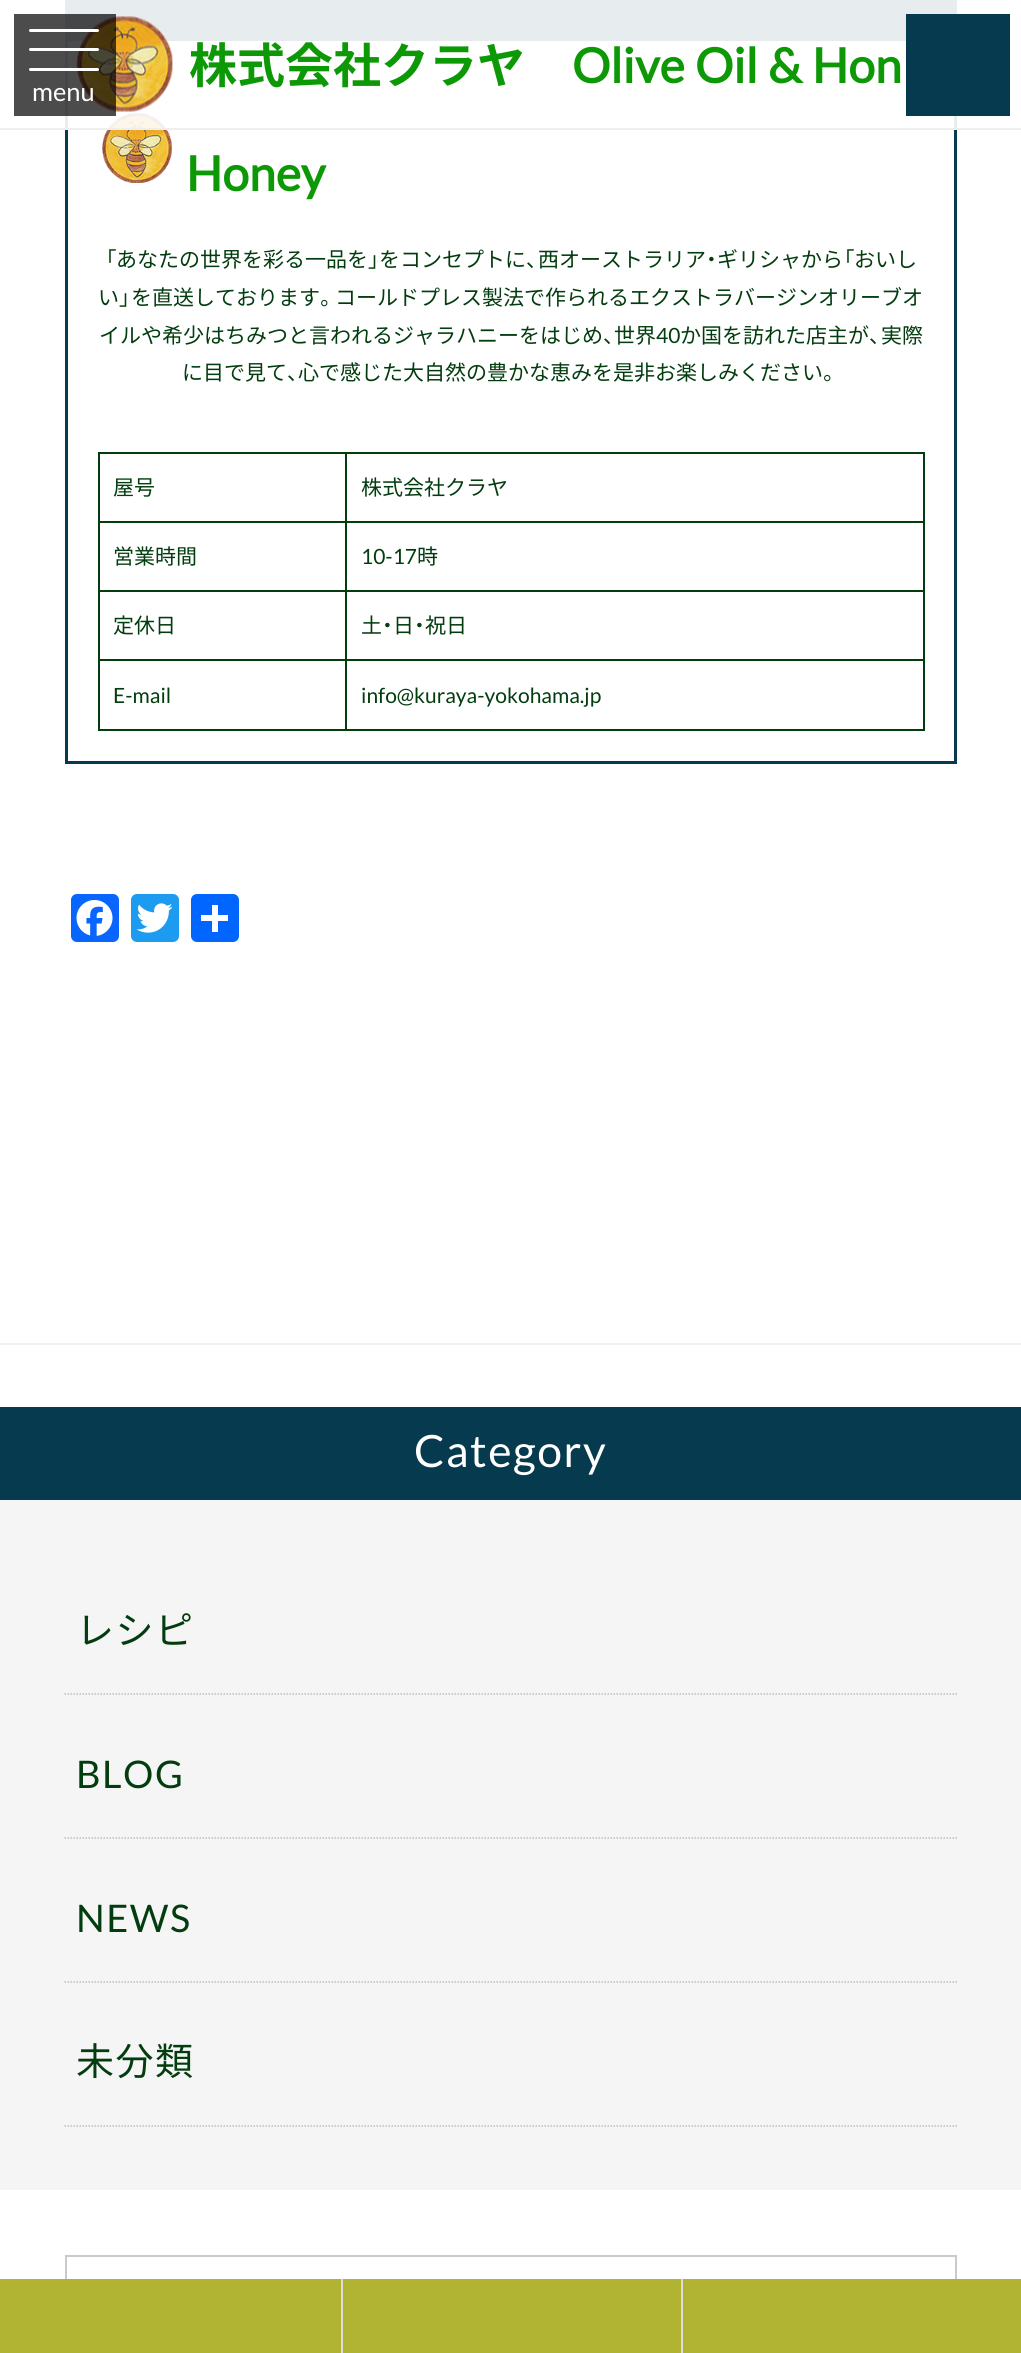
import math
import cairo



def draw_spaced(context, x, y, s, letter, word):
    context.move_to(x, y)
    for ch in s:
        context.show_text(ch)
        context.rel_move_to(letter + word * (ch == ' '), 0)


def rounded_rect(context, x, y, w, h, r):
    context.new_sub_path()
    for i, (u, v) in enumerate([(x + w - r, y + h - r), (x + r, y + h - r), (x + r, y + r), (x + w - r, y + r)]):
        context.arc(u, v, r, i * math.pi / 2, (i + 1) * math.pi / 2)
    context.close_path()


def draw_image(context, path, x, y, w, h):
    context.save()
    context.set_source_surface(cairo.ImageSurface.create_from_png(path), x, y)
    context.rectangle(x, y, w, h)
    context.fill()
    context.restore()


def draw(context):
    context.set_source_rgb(1, 1, 1)
    context.paint()
    context.rectangle(66.5, -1.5, 889, 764)
    context.set_source_rgb(6 / 255, 58 / 255, 78 / 255)
    context.set_line_width(3)
    context.stroke()
    context.rectangle(68, 0, 886, 41)
    context.fill()
    draw_image(context, "images/2.png", 102, 113, 70, 70)
    context.set_source_rgba(1, 1, 1, 0.9)
    context.rectangle(65, 0, 892, 128)
    context.fill()
    context.set_source_rgb(238 / 255, 238 / 255, 238 / 255)
    context.rectangle(0, 128, 1021, 2)
    context.fill()
    draw_image(context, "images/1.png", 76, 16, 97, 96)
    context.set_source_rgb(6 / 255, 58 / 255, 78 / 255)
    context.rectangle(906, 14, 104, 102)
    context.fill()
    context.set_source_rgba(0, 0, 0, 0.7)
    context.rectangle(14, 14, 102, 102)
    context.fill()
    context.set_source_rgb(1, 1, 1)
    rounded_rect(context, 29, 29, 70, 3, 1.5)
    context.fill()
    rounded_rect(context, 29, 48, 70, 3, 1.5)
    context.fill()
    rounded_rect(context, 29, 68, 70, 3, 1.5)
    context.fill()
    context.set_source_rgb(3 / 255, 61 / 255, 15 / 255)
    context.rectangle(345, 452, 579, 2)
    context.fill()
    context.rectangle(345, 521, 579, 2)
    context.fill()
    context.rectangle(345, 590, 579, 2)
    context.fill()
    context.rectangle(345, 659, 579, 2)
    context.fill()
    context.rectangle(923, 659, 2, 72)
    context.fill()
    context.rectangle(345, 729, 579, 2)
    context.fill()
    context.rectangle(345, 659, 2, 72)
    context.fill()
    context.rectangle(98, 659, 249, 2)
    context.fill()
    context.rectangle(345, 590, 2, 70)
    context.fill()
    context.rectangle(98, 590, 249, 2)
    context.fill()
    context.rectangle(345, 521, 2, 70)
    context.fill()
    context.rectangle(98, 521, 249, 2)
    context.fill()
    context.rectangle(345, 452, 2, 70)
    context.fill()
    context.rectangle(98, 452, 249, 2)
    context.fill()
    context.rectangle(98, 729, 249, 2)
    context.fill()
    context.rectangle(98, 659, 2, 72)
    context.fill()
    context.rectangle(98, 590, 2, 70)
    context.fill()
    context.rectangle(98, 521, 2, 70)
    context.fill()
    context.rectangle(98, 452, 2, 70)
    context.fill()
    context.rectangle(923, 590, 2, 70)
    context.fill()
    context.rectangle(923, 521, 2, 70)
    context.fill()
    context.rectangle(923, 452, 2, 70)
    context.fill()
    context.set_source_rgb(8 / 255, 102 / 255, 1)
    rounded_rect(context, 71, 894, 48, 48, 6)
    context.fill()
    draw_image(context, "images/3.png", 76, 900, 37, 36)
    context.set_source_rgb(29 / 255, 155 / 255, 240 / 255)
    rounded_rect(context, 131, 894, 48, 48, 6)
    context.fill()
    draw_image(context, "images/4.png", 136, 903, 37, 30)
    context.set_source_rgb(1 / 255, 102 / 255, 1)
    rounded_rect(context, 191, 894, 48, 48, 6)
    context.fill()
    context.set_source_rgb(1, 1, 1)
    context.rectangle(212, 905, 6, 27)
    context.fill()
    context.rectangle(201, 915, 27, 6)
    context.fill()
    context.set_source_rgb(241 / 255, 241 / 255, 241 / 255)
    context.rectangle(0, 1343, 1021, 2)
    context.fill()
    context.set_source_rgb(245 / 255, 245 / 255, 245 / 255)
    context.rectangle(0, 1500, 1021, 690)
    context.fill()
    context.set_source_rgb(6 / 255, 58 / 255, 78 / 255)
    context.rectangle(0, 1407, 1021, 93)
    context.fill()
    context.new_path()
    context.move_to(64.5, 1694)
    context.line_to(957, 1694)
    context.set_source_rgb(191 / 255, 186 / 255, 186 / 255)
    context.set_line_width(1.5)
    context.set_dash([1.5, 1.5])
    context.stroke()
    context.new_path()
    context.move_to(64.5, 1838)
    context.line_to(957, 1838)
    context.stroke()
    context.new_path()
    context.move_to(64.5, 1982)
    context.line_to(957, 1982)
    context.stroke()
    context.new_path()
    context.move_to(64.5, 2126)
    context.line_to(957, 2126)
    context.stroke()
    context.rectangle(66, 2256, 890, 94)
    context.set_source_rgb(202 / 255, 202 / 255, 202 / 255)
    context.set_line_width(2)
    context.set_dash([])
    context.stroke()
    context.set_source_rgb(177 / 255, 179 / 255, 51 / 255)
    context.rectangle(0, 2279, 341, 74)
    context.fill()
    context.rectangle(343, 2279, 338, 74)
    context.fill()
    context.set_source_rgb(221 / 255, 221 / 255, 221 / 255)
    context.rectangle(341, 2279, 2, 74)
    context.fill()
    context.set_source_rgb(177 / 255, 179 / 255, 51 / 255)
    context.rectangle(683, 2279, 338, 74)
    context.fill()
    context.set_source_rgb(221 / 255, 221 / 255, 221 / 255)
    context.rectangle(681, 2279, 2, 74)
    context.fill()
    context.select_font_face("Noto Sans JP", cairo.FontSlant.NORMAL, cairo.FontWeight.BOLD)
    context.set_font_size(48)
    context.set_source_rgb(13 / 255, 153 / 255, 6 / 255)
    context.move_to(189, 83)
    context.show_text("株式会社クラヤ")
    context.select_font_face("Lato", cairo.FontSlant.NORMAL, cairo.FontWeight.BOLD)
    draw_spaced(context, 572, 83, "Olive Oil & Hon", 0, 1)
    context.select_font_face("Lato")
    context.set_font_size(25.5)
    context.set_source_rgb(1, 1, 1)
    context.move_to(32, 101)
    context.show_text("menu")
    context.select_font_face("Lato", cairo.FontSlant.NORMAL, cairo.FontWeight.BOLD)
    context.set_font_size(48)
    context.set_source_rgb(13 / 255, 153 / 255, 6 / 255)
    context.move_to(186, 191)
    context.show_text("Honey")
    context.select_font_face("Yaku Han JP")
    context.set_font_size(21)
    context.set_source_rgb(3 / 255, 61 / 255, 15 / 255)
    context.move_to(105, 267)
    context.show_text("「")
    context.select_font_face("Noto Sans JP")
    context.move_to(116, 267)
    context.show_text("あなたの世界を彩る一品を")
    context.select_font_face("Yaku Han JP")
    context.move_to(368, 267)
    context.show_text("」")
    context.select_font_face("Noto Sans JP")
    context.move_to(379, 267)
    context.show_text("をコンセプトに")
    context.move_to(538, 267)
    context.show_text("西オーストラリア")
    context.select_font_face("Yaku Han JP")
    context.move_to(706, 267)
    context.show_text("・")
    context.select_font_face("Noto Sans JP")
    context.move_to(717, 267)
    context.show_text("ギリシャから")
    context.select_font_face("Yaku Han JP")
    context.move_to(843, 267)
    context.show_text("「")
    context.select_font_face("Noto Sans JP")
    context.move_to(854, 267)
    context.show_text("おいし")
    context.select_font_face("Yaku Han JP")
    context.move_to(526, 267)
    context.show_text("、")
    context.select_font_face("Noto Sans JP")
    context.move_to(98, 305)
    context.show_text("い")
    context.select_font_face("Yaku Han JP")
    context.move_to(119, 305)
    context.show_text("」")
    context.select_font_face("Noto Sans JP")
    context.move_to(131, 305)
    context.show_text("を直送しております")
    context.select_font_face("Yaku Han JP")
    context.move_to(320, 305)
    context.show_text("。")
    context.select_font_face("Noto Sans JP")
    context.move_to(335, 305)
    context.show_text("コールドプレス製法で作られるエクストラバージンオリーブオ")
    context.move_to(99, 343)
    context.show_text("イルや希少はちみつと言われるジャラハニーをはじめ")
    context.select_font_face("Yaku Han JP")
    context.move_to(603, 343)
    context.show_text("、")
    context.select_font_face("Noto Sans JP")
    context.move_to(614, 343)
    context.show_text("世界")
    context.select_font_face("Lato")
    context.move_to(656, 343)
    context.show_text("40")
    context.select_font_face("Noto Sans JP")
    context.move_to(680, 343)
    context.show_text("か国を訪れた店主が")
    context.select_font_face("Yaku Han JP")
    context.move_to(869, 343)
    context.show_text("、")
    context.select_font_face("Noto Sans JP")
    context.move_to(881, 343)
    context.show_text("実際")
    context.move_to(182, 380)
    context.show_text("に目で見て")
    context.select_font_face("Yaku Han JP")
    context.move_to(287, 380)
    context.show_text("、")
    context.select_font_face("Noto Sans JP")
    context.move_to(298, 380)
    context.show_text("心で感じた大自然の豊かな恵みを是非お楽しみください")
    context.select_font_face("Yaku Han JP")
    context.move_to(823, 380)
    context.show_text("。")
    context.select_font_face("Noto Sans JP")
    context.move_to(113, 495)
    context.show_text("屋号")
    context.move_to(361, 495)
    context.show_text("株式会社クラヤ")
    context.move_to(113, 564)
    context.show_text("営業時間")
    context.select_font_face("Lato")
    context.move_to(361, 564)
    context.show_text("10-17")
    context.select_font_face("Noto Sans JP")
    context.move_to(417, 564)
    context.show_text("時")
    context.move_to(113, 633)
    context.show_text("定休日")
    context.move_to(361, 633)
    context.show_text("土")
    context.select_font_face("Yaku Han JP")
    context.move_to(382, 633)
    context.show_text("・")
    context.select_font_face("Noto Sans JP")
    context.move_to(393, 633)
    context.show_text("日")
    context.select_font_face("Yaku Han JP")
    context.move_to(414, 633)
    context.show_text("・")
    context.select_font_face("Noto Sans JP")
    context.move_to(425, 633)
    context.show_text("祝日")
    context.select_font_face("Lato")
    context.move_to(113, 703)
    context.show_text("E-mail")
    context.move_to(361, 703)
    context.show_text("info@kuraya-yokohama.jp")
    context.set_font_size(44.5)
    context.set_source_rgb(1, 1, 1)
    draw_spaced(context, 414, 1467, "Category", 1.5, 0)
    context.select_font_face("Noto Sans JP")
    context.set_font_size(38)
    context.set_source_rgb(3 / 255, 61 / 255, 15 / 255)
    draw_spaced(context, 76, 1644, "レシピ", 1.5, 0)
    context.select_font_face("Lato")
    draw_spaced(context, 76, 1788, "BLOG", 1.5, 0)
    draw_spaced(context, 76, 1932, "NEWS", 1.5, 0)
    context.select_font_face("Noto Sans JP")
    draw_spaced(context, 76, 2075, "未分類", 1.5, 0)


surface = cairo.ImageSurface(cairo.Format.RGB24, 1021, 2353)
context = cairo.Context(surface)
options = cairo.FontOptions()
options.set_hint_metrics(cairo.HintMetrics.OFF)
options.set_hint_style(cairo.HintStyle.NONE)
context.set_font_options(options)
context.set_miter_limit(4)
draw(context)
surface.write_to_png("out.png")
